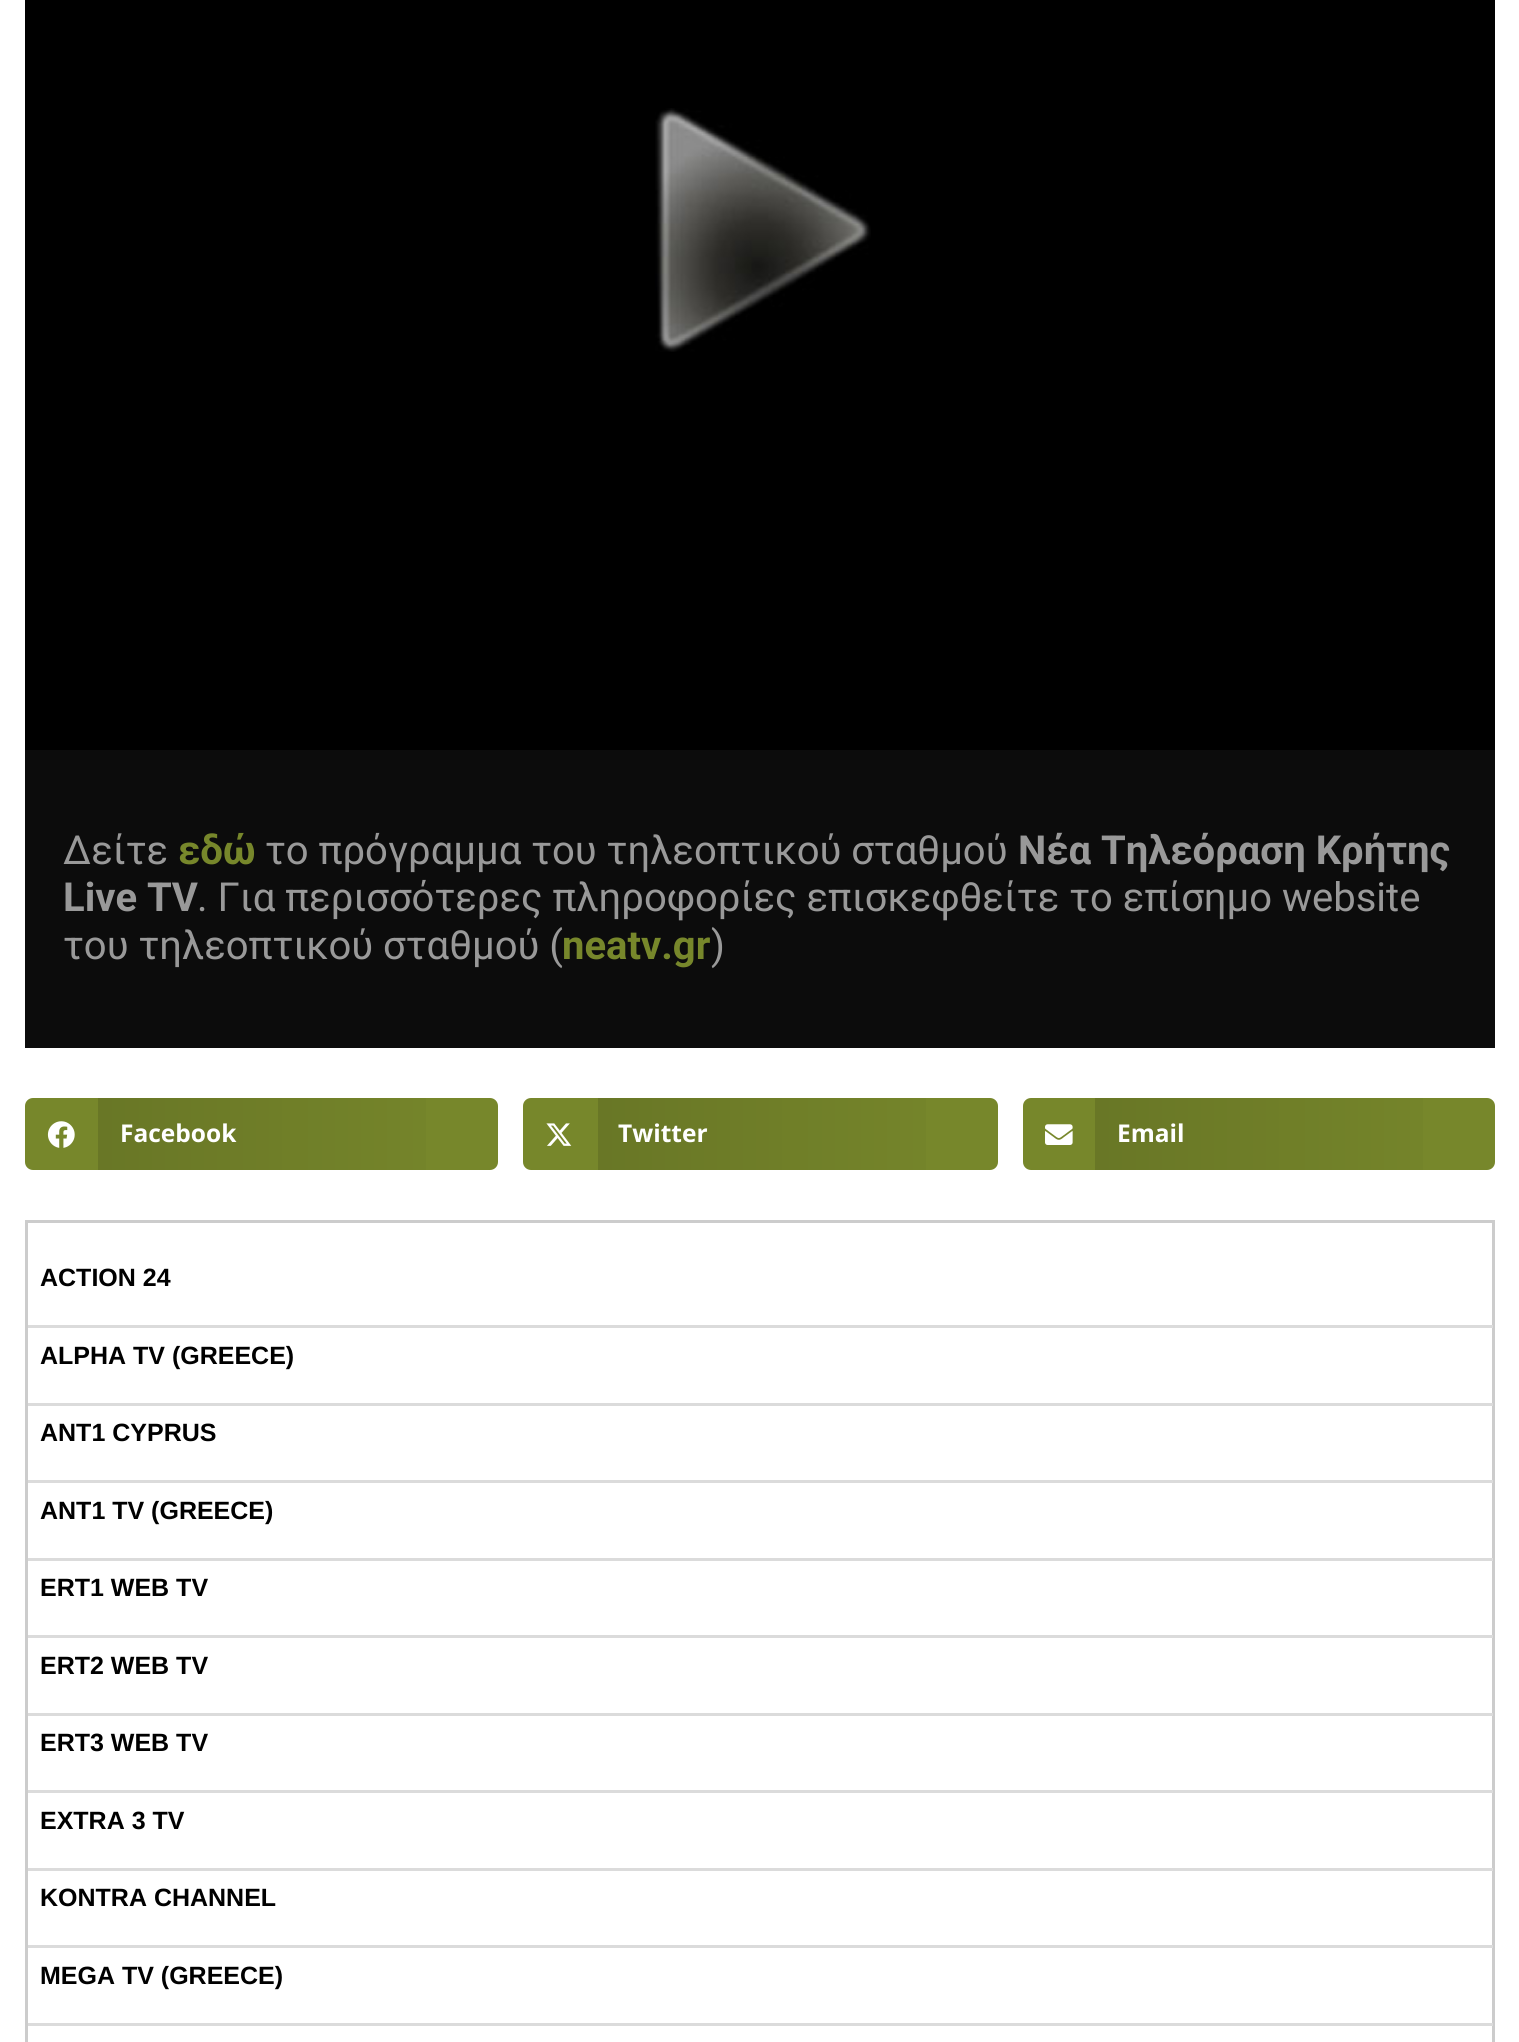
import math
import cairo



def rounded_rect(context, x, y, w, h, r):
    context.new_sub_path()
    for i, (u, v) in enumerate([(x + w - r, y + h - r), (x + r, y + h - r), (x + r, y + r), (x + w - r, y + r)]):
        context.arc(u, v, r, i * math.pi / 2, (i + 1) * math.pi / 2)
    context.close_path()


def draw_image(context, path, x, y, w, h):
    context.save()
    context.set_source_surface(cairo.ImageSurface.create_from_png(path), x, y)
    context.rectangle(x, y, w, h)
    context.fill()
    context.restore()


def draw(context):
    context.set_source_rgb(1, 1, 1)
    context.paint()
    context.set_source_rgb(0, 0, 0)
    context.rectangle(25, 0, 1470, 750)
    context.fill()
    draw_image(context, "images/1.png", 655, 108, 216, 244)
    context.set_source_rgb(12 / 255, 12 / 255, 12 / 255)
    context.rectangle(25, 750, 1470, 298)
    context.fill()
    context.set_source_rgb(119 / 255, 135 / 255, 43 / 255)
    rounded_rect(context, 25, 1098, 473, 72, 8)
    context.fill()
    draw_image(context, "images/2.png", 47, 1121, 28, 27)
    gradient = cairo.LinearGradient(98, 1134, 498, 1134)
    gradient.add_color_stop_rgba(0, 0, 0, 0, 0.12)
    gradient.add_color_stop_rgba(1, 0, 0, 0, 0)
    context.set_source(gradient)
    context.rectangle(98, 1098, 328, 72)
    context.fill()
    context.set_source_rgb(119 / 255, 135 / 255, 43 / 255)
    rounded_rect(context, 523, 1098, 475, 72, 8)
    context.fill()
    draw_image(context, "images/3.png", 546, 1123, 26, 23)
    gradient = cairo.LinearGradient(598, 1134, 998, 1134)
    gradient.add_color_stop_rgba(0, 0, 0, 0, 0.12)
    gradient.add_color_stop_rgba(1, 0, 0, 0, 0)
    context.set_source(gradient)
    context.rectangle(598, 1098, 328, 72)
    context.fill()
    context.set_source_rgb(119 / 255, 135 / 255, 43 / 255)
    rounded_rect(context, 1023, 1098, 472, 72, 8)
    context.fill()
    draw_image(context, "images/4.png", 1045, 1124, 28, 21)
    gradient = cairo.LinearGradient(1095, 1134, 1495, 1134)
    gradient.add_color_stop_rgba(0, 0, 0, 0, 0.12)
    gradient.add_color_stop_rgba(1, 0, 0, 0, 0)
    context.set_source(gradient)
    context.rectangle(1095, 1098, 328, 72)
    context.fill()
    context.rectangle(26.5, 1221.5, 1467, 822)
    context.set_source_rgb(204 / 255, 204 / 255, 204 / 255)
    context.set_line_width(3)
    context.stroke()
    context.set_source_rgb(219 / 255, 219 / 255, 219 / 255)
    context.rectangle(28, 1325, 1465, 3)
    context.fill()
    context.rectangle(28, 1403, 1465, 3)
    context.fill()
    context.rectangle(28, 1480, 1465, 3)
    context.fill()
    context.rectangle(28, 1558, 1465, 3)
    context.fill()
    context.rectangle(28, 1635, 1465, 3)
    context.fill()
    context.rectangle(28, 1713, 1465, 3)
    context.fill()
    context.rectangle(28, 1790, 1465, 3)
    context.fill()
    context.rectangle(28, 1868, 1465, 3)
    context.fill()
    context.rectangle(28, 1945, 1465, 3)
    context.fill()
    context.rectangle(28, 2023, 1465, 3)
    context.fill()
    context.select_font_face("Roboto")
    context.set_font_size(40)
    context.set_source_rgb(153 / 255, 153 / 255, 153 / 255)
    context.move_to(63, 864)
    context.show_text("Δείτε")
    context.select_font_face("Roboto", cairo.FontSlant.NORMAL, cairo.FontWeight.BOLD)
    context.set_source_rgb(119 / 255, 135 / 255, 43 / 255)
    context.move_to(178, 864)
    context.show_text("εδώ")
    context.select_font_face("Roboto")
    context.set_source_rgb(153 / 255, 153 / 255, 153 / 255)
    context.move_to(265, 864)
    context.show_text("το πρόγραμμα του τηλεοπτικού σταθμού")
    context.select_font_face("Roboto", cairo.FontSlant.NORMAL, cairo.FontWeight.BOLD)
    context.move_to(1018, 864)
    context.show_text("Νέα Τηλεόραση Κρήτης")
    context.move_to(63, 911)
    context.show_text("Live TV")
    context.select_font_face("Roboto")
    context.move_to(197, 911)
    context.show_text(". Για περισσότερες πληροφορίες επισκεφθείτε το επίσημο website")
    context.move_to(63, 959)
    context.show_text("του τηλεοπτικού σταθμού (")
    context.select_font_face("Roboto", cairo.FontSlant.NORMAL, cairo.FontWeight.BOLD)
    context.set_source_rgb(119 / 255, 135 / 255, 43 / 255)
    context.move_to(562, 959)
    context.show_text("neatv.gr")
    context.select_font_face("Roboto")
    context.set_source_rgb(153 / 255, 153 / 255, 153 / 255)
    context.move_to(711, 959)
    context.show_text(")")
    context.select_font_face("Open Sans", cairo.FontSlant.NORMAL, cairo.FontWeight.BOLD)
    context.set_font_size(24.5)
    context.set_source_rgb(1, 1, 1)
    context.move_to(120, 1142)
    context.show_text("Facebook")
    context.move_to(618, 1142)
    context.show_text("Twitter")
    context.move_to(1117, 1142)
    context.show_text("Email")
    context.select_font_face("Liberation Sans", cairo.FontSlant.NORMAL, cairo.FontWeight.BOLD)
    context.set_font_size(25)
    context.set_source_rgb(0, 0, 0)
    context.move_to(40, 1286)
    context.show_text("ACTION 24")
    context.move_to(40, 1364)
    context.show_text("ALPHA TV (GREECE)")
    context.move_to(40, 1441)
    context.show_text("ANT1 CYPRUS")
    context.move_to(40, 1519)
    context.show_text("ANT1 TV (GREECE)")
    context.move_to(40, 1596)
    context.show_text("ERT1 WEB TV")
    context.move_to(40, 1674)
    context.show_text("ERT2 WEB TV")
    context.move_to(40, 1751)
    context.show_text("ERT3 WEB TV")
    context.move_to(40, 1829)
    context.show_text("EXTRA 3 TV")
    context.move_to(40, 1906)
    context.show_text("KONTRA CHANNEL")
    context.move_to(40, 1984)
    context.show_text("MEGA TV (GREECE)")


surface = cairo.ImageSurface(cairo.Format.RGB24, 1519, 2042)
context = cairo.Context(surface)
options = cairo.FontOptions()
options.set_hint_metrics(cairo.HintMetrics.OFF)
options.set_hint_style(cairo.HintStyle.NONE)
context.set_font_options(options)
context.set_miter_limit(4)
draw(context)
surface.write_to_png("out.png")
